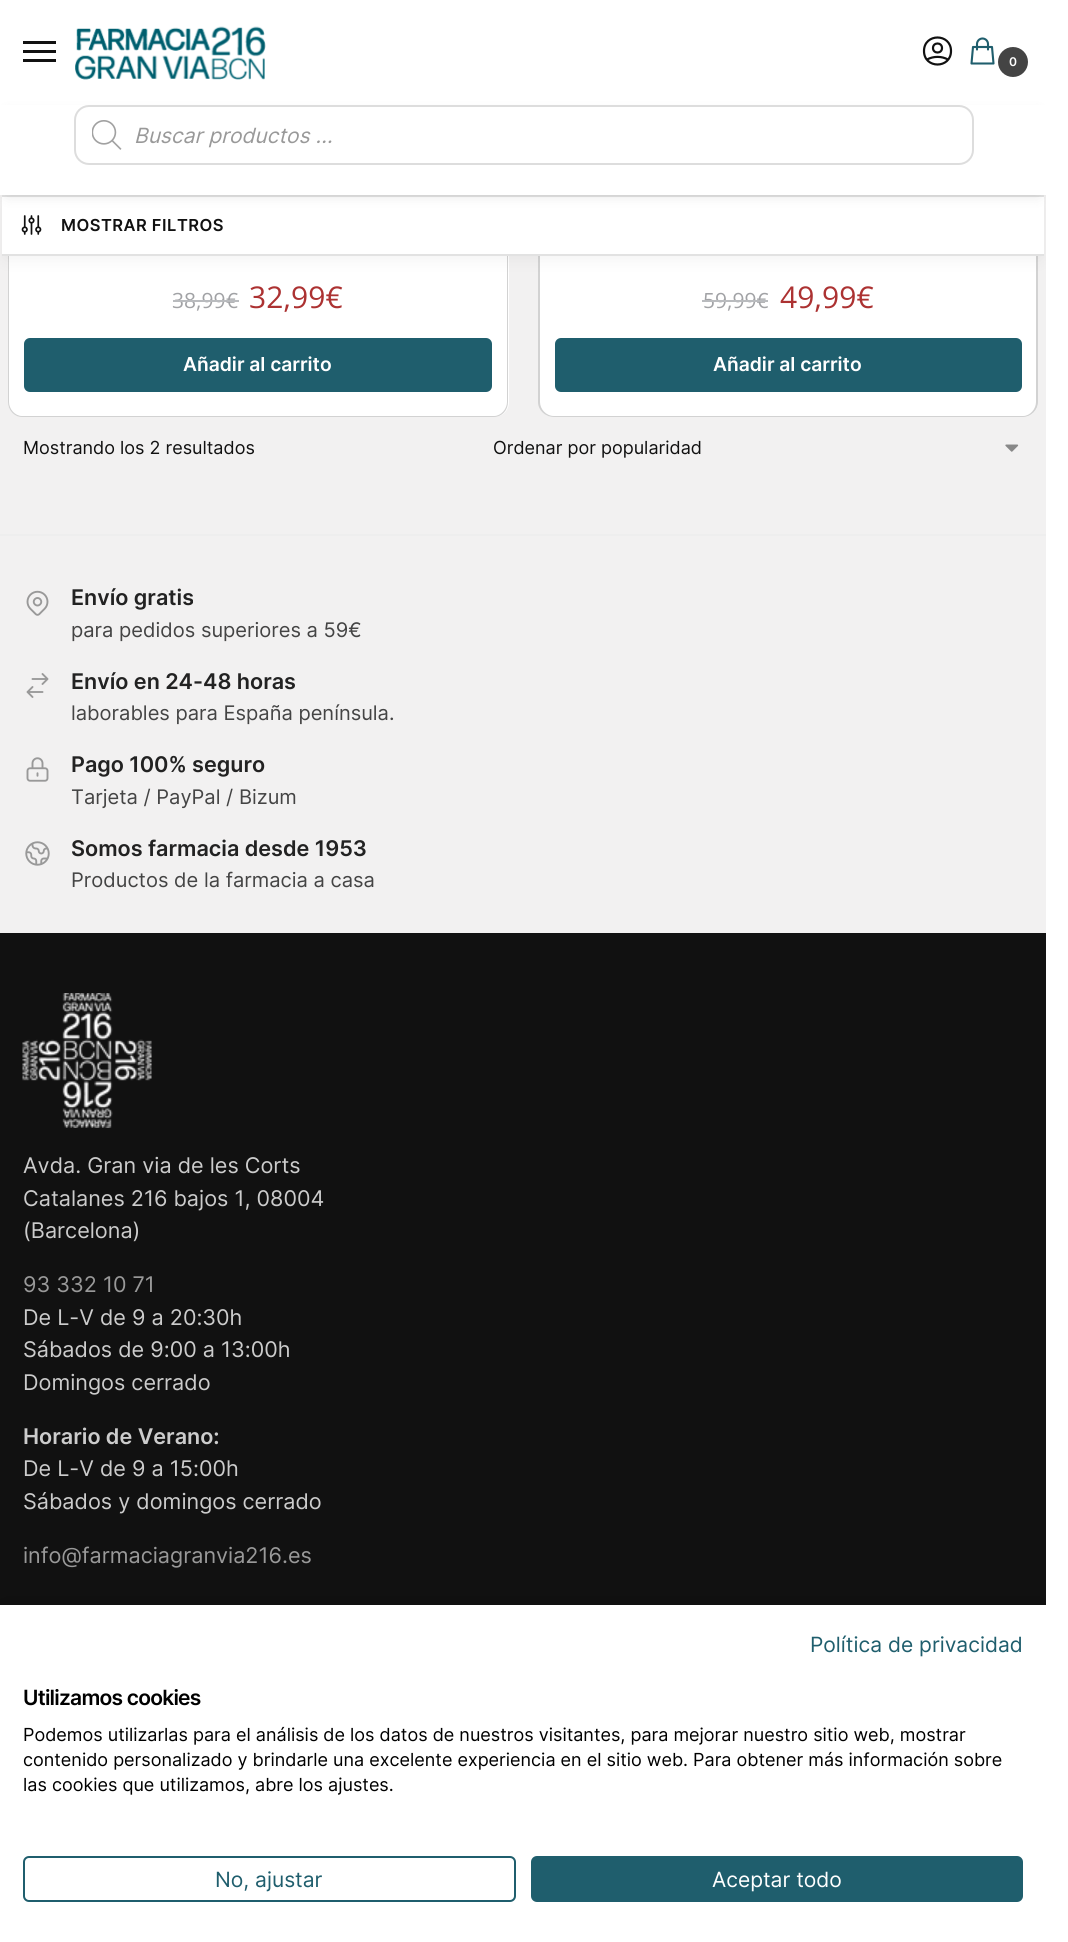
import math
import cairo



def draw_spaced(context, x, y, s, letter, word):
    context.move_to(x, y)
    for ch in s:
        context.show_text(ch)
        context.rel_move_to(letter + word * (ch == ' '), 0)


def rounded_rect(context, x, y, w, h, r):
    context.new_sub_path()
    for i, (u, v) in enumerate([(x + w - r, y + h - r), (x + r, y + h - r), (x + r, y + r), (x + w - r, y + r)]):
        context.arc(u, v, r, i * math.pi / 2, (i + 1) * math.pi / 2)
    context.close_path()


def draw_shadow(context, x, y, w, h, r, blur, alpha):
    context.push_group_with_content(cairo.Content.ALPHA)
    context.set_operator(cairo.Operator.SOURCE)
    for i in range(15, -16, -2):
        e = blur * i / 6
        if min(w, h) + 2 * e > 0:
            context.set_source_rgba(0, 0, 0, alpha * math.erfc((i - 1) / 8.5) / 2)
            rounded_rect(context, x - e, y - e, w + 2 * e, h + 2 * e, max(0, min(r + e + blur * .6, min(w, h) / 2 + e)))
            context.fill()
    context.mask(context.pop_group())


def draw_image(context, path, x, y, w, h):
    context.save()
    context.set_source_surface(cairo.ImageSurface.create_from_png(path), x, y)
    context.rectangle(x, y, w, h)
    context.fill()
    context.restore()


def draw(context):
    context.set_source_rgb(242 / 255, 241 / 255, 241 / 255)
    context.paint()
    context.set_source_rgb(1, 1, 1)
    context.rectangle(0, 0, 1046, 105)
    context.fill()
    context.set_source_rgb(17 / 255, 17 / 255, 17 / 255)
    context.rectangle(23, 41, 33, 3)
    context.fill()
    context.rectangle(23, 50, 33, 3)
    context.fill()
    context.rectangle(23, 59, 33, 3)
    context.fill()
    draw_image(context, "images/1.png", 75, 26, 191, 54)
    context.new_path()
    context.move_to(927, 59.5)
    context.curve_to(933.5, 56, 941.5, 56, 948, 59.5)
    context.move_to(942, 48)
    context.curve_to(942, 54, 933, 54, 933, 48)
    context.curve_to(933, 42, 942, 42, 942, 48)
    context.close_path()
    context.move_to(951, 51)
    context.curve_to(951, 69, 924, 69, 924, 51)
    context.curve_to(924, 33, 951, 33, 951, 51)
    context.close_path()
    context.set_line_width(2.2)
    context.set_line_cap(cairo.LineCap.ROUND)
    context.set_line_join(cairo.LineJoin.ROUND)
    context.stroke()
    context.new_path()
    context.move_to(988, 49.5)
    context.line_to(988, 44)
    context.curve_to(988, 41, 985.5, 38.5, 982.5, 38.5)
    context.curve_to(979.5, 38.5, 977, 41, 977, 44)
    context.line_to(977, 49.5)
    context.move_to(973, 47)
    context.line_to(992, 47)
    context.line_to(993.5, 63.5)
    context.line_to(971.5, 63.5)
    context.close_path()
    context.set_source_rgb(31 / 255, 94 / 255, 109 / 255)
    context.set_line_width(2.1)
    context.stroke()
    context.set_source_rgb(68 / 255, 68 / 255, 68 / 255)
    context.arc(1013, 62, 14, 0, 2 * math.pi)
    context.fill_preserve()
    context.set_line_width(2)
    context.set_line_cap(cairo.LineCap.BUTT)
    context.set_line_join(cairo.LineJoin.MITER)
    context.stroke()
    context.set_source_rgb(1, 1, 1)
    context.new_path()
    context.move_to(8, 174)
    context.line_to(509, 174)
    context.line_to(509, 402)
    context.curve_to(509, 410.5, 502.5, 417, 494, 417)
    context.line_to(23, 417)
    context.curve_to(14.5, 417, 8, 410.5, 8, 402)
    context.close_path()
    context.fill()
    context.set_source_rgb(210 / 255, 210 / 255, 210 / 255)
    context.set_fill_rule(cairo.FillRule.EVEN_ODD)
    context.new_path()
    context.move_to(8, 174)
    context.line_to(508, 174)
    context.line_to(508, 402)
    context.curve_to(508, 410, 502, 417, 494, 417)
    context.line_to(22, 417)
    context.curve_to(14, 417, 8, 410, 8, 402)
    context.close_path()
    context.move_to(9, 174)
    context.line_to(507, 174)
    context.line_to(507, 402)
    context.curve_to(507, 409, 501, 416, 494, 416)
    context.line_to(22, 416)
    context.curve_to(15, 416, 9, 409, 9, 402)
    context.close_path()
    context.fill()
    context.set_source_rgb(1, 1, 1)
    context.new_path()
    context.move_to(539, 174)
    context.line_to(1038, 174)
    context.line_to(1038, 402)
    context.curve_to(1038, 410.5, 1031.5, 417, 1023, 417)
    context.line_to(554, 417)
    context.curve_to(545.5, 417, 539, 410.5, 539, 402)
    context.close_path()
    context.fill()
    context.set_source_rgb(210 / 255, 210 / 255, 210 / 255)
    context.new_path()
    context.move_to(538, 174)
    context.line_to(1038, 174)
    context.line_to(1038, 402)
    context.curve_to(1038, 410, 1031, 417, 1023, 417)
    context.line_to(554, 417)
    context.curve_to(545, 417, 538, 410, 538, 402)
    context.close_path()
    context.move_to(540, 174)
    context.line_to(1036, 174)
    context.line_to(1036, 402)
    context.curve_to(1036, 409, 1030, 416, 1023, 416)
    context.line_to(554, 416)
    context.curve_to(546, 416, 540, 409, 540, 402)
    context.close_path()
    context.fill()
    context.set_source_rgb(0, 0, 0)
    draw_shadow(context, 5, 204, 1036, 54, 0, 9, 0.06)
    context.set_source_rgb(1, 1, 1)
    context.rectangle(2, 197, 1042, 57)
    context.fill()
    context.set_source_rgb(226 / 255, 226 / 255, 226 / 255)
    context.rectangle(2, 195, 1042, 2)
    context.fill()
    draw_image(context, "images/3.png", 21, 215, 21, 20)
    context.set_source_rgb(0, 0, 0)
    draw_shadow(context, 8, 117, 1030, 75, 0, 7.5, 0.18)
    context.set_source_rgb(1, 1, 1)
    context.rectangle(0, 105, 1046, 90)
    context.fill()
    rounded_rect(context, 75, 106, 898, 58, 14)
    context.set_source_rgb(221 / 255, 221 / 255, 221 / 255)
    context.stroke()
    draw_image(context, "images/2.png", 92, 120, 30, 30)
    context.set_source_rgb(1, 1, 1)
    context.rectangle(1046, 0, 22, 1942)
    context.fill()
    context.set_source_rgb(226 / 255, 226 / 255, 226 / 255)
    context.rectangle(2, 254, 1042, 2)
    context.fill()
    context.set_source_rgb(31 / 255, 94 / 255, 109 / 255)
    rounded_rect(context, 24, 338, 468, 54, 6)
    context.fill()
    rounded_rect(context, 555, 338, 467, 54, 6)
    context.fill()
    draw_image(context, "images/4.png", 1005, 444, 14, 8)
    context.set_source_rgb(238 / 255, 238 / 255, 238 / 255)
    context.rectangle(0, 534, 1046, 2)
    context.fill()
    draw_image(context, "images/5.png", 26, 590, 23, 26)
    context.new_path()
    context.move_to(32.5, 679)
    context.line_to(47.5, 679)
    context.move_to(47.5, 679)
    context.line_to(42.5, 674)
    context.move_to(47.5, 679)
    context.line_to(42.5, 684)
    context.move_to(42.5, 692)
    context.line_to(27.5, 692)
    context.move_to(27.5, 692)
    context.line_to(32.5, 697)
    context.move_to(27.5, 692)
    context.line_to(32.5, 687)
    context.set_source_rgb(153 / 255, 153 / 255, 153 / 255)
    context.set_line_width(1.9)
    context.set_line_cap(cairo.LineCap.ROUND)
    context.set_line_join(cairo.LineJoin.ROUND)
    context.stroke()
    draw_image(context, "images/6.png", 26, 757, 23, 25)
    draw_image(context, "images/7.png", 25, 841, 25, 25)
    context.set_source_rgb(17 / 255, 17 / 255, 17 / 255)
    context.rectangle(0, 933, 1046, 672)
    context.fill()
    draw_image(context, "images/8.png", 22, 993, 130, 135)
    context.save()
    context.set_fill_rule(cairo.FillRule.WINDING)
    context.rectangle(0, 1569, 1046, 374)
    context.clip()
    context.set_source_rgb(0, 0, 0)
    draw_shadow(context, 0, 1605, 1046, 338, 0, 18, 0.1)
    context.restore()
    context.set_source_rgb(1, 1, 1)
    context.rectangle(0, 1605, 1046, 337)
    context.fill()
    rounded_rect(context, 24, 1857, 491, 44, 5)
    context.set_source_rgb(31 / 255, 94 / 255, 109 / 255)
    context.set_line_width(2)
    context.set_line_cap(cairo.LineCap.BUTT)
    context.set_line_join(cairo.LineJoin.MITER)
    context.stroke()
    rounded_rect(context, 532, 1857, 490, 44, 5)
    context.fill_preserve()
    context.stroke()
    context.select_font_face("Inter SemiBold")
    context.set_font_size(12)
    context.set_source_rgb(1, 1, 1)
    context.move_to(1009, 66)
    context.show_text("0")
    context.select_font_face("Inter", cairo.FontSlant.ITALIC)
    context.set_font_size(21)
    context.set_source_rgb(153 / 255, 153 / 255, 153 / 255)
    context.move_to(134, 143)
    context.show_text("Buscar productos ...")
    context.select_font_face("Inter SemiBold")
    context.set_font_size(16.5)
    context.set_source_rgb(17 / 255, 17 / 255, 17 / 255)
    draw_spaced(context, 61, 231, "MOSTRAR FILTROS", 0.5, 0)
    context.select_font_face("Open Sans")
    context.set_font_size(21)
    context.set_source_rgb(161 / 255, 162 / 255, 165 / 255)
    context.move_to(172, 308)
    context.show_text("38,99")
    context.set_source_rgb(185 / 255, 187 / 255, 190 / 255)
    context.rectangle(173, 300, 54, 2)
    context.fill()
    context.set_source_rgb(161 / 255, 162 / 255, 165 / 255)
    context.move_to(226, 308)
    context.show_text("€")
    context.set_source_rgb(185 / 255, 187 / 255, 190 / 255)
    context.rectangle(227, 300, 12, 2)
    context.fill()
    context.set_font_size(30)
    context.set_source_rgb(172 / 255, 50 / 255, 50 / 255)
    context.move_to(249, 308)
    context.show_text("32,99€")
    context.select_font_face("Inter SemiBold")
    context.set_font_size(19.25)
    context.set_source_rgb(1, 1, 1)
    context.move_to(183, 371)
    context.show_text("Añadir al carrito")
    context.new_path()
    context.move_to(249, 355.5)
    context.curve_to(252, 352.5, 256.5, 351, 260.5, 352)
    context.curve_to(275.5, 355, 273, 377, 258, 377)
    context.curve_to(254.5, 377.5, 251.5, 376, 249, 373.5)
    context.move_to(249, 373.5)
    context.curve_to(244, 368.5, 244, 360.5, 249, 355.5)
    context.set_source_rgb(31 / 255, 94 / 255, 109 / 255)
    context.set_line_width(1.5)
    context.stroke()
    context.select_font_face("Open Sans")
    context.set_font_size(21)
    context.set_source_rgb(161 / 255, 162 / 255, 165 / 255)
    context.move_to(703, 308)
    context.show_text("59,99€")
    context.set_source_rgb(185 / 255, 187 / 255, 190 / 255)
    context.rectangle(702, 300, 66, 2)
    context.fill()
    context.set_font_size(30)
    context.set_source_rgb(172 / 255, 50 / 255, 50 / 255)
    context.move_to(780, 308)
    context.show_text("49,99€")
    context.select_font_face("Inter SemiBold")
    context.set_font_size(19.25)
    context.set_source_rgb(1, 1, 1)
    context.move_to(713, 371)
    context.show_text("Añadir al carrito")
    context.select_font_face("Inter")
    context.set_font_size(18)
    context.set_source_rgb(17 / 255, 17 / 255, 17 / 255)
    context.move_to(23, 454)
    context.show_text("Mostrando los 2 resultados")
    context.move_to(493, 454)
    context.show_text("Ordenar por popularidad")
    context.select_font_face("Inter SemiBold")
    context.set_font_size(21.6)
    context.set_source_rgb(34 / 255, 34 / 255, 34 / 255)
    context.move_to(71, 605)
    context.show_text("Envío gratis")
    context.select_font_face("Inter")
    context.set_font_size(20.1)
    context.set_source_rgb(68 / 255, 68 / 255, 68 / 255)
    context.move_to(71, 637)
    context.show_text("para pedidos superiores a 59€")
    context.select_font_face("Inter SemiBold")
    context.set_font_size(21.6)
    context.set_source_rgb(34 / 255, 34 / 255, 34 / 255)
    context.move_to(71, 689)
    context.show_text("Envío en 24-48 horas")
    context.select_font_face("Inter")
    context.set_font_size(20.1)
    context.set_source_rgb(68 / 255, 68 / 255, 68 / 255)
    context.move_to(71, 720)
    context.show_text("laborables para España península.")
    context.select_font_face("Inter SemiBold")
    context.set_font_size(21.6)
    context.set_source_rgb(34 / 255, 34 / 255, 34 / 255)
    context.move_to(71, 772)
    context.show_text("Pago 100% seguro")
    context.select_font_face("Inter")
    context.set_font_size(20.1)
    context.set_source_rgb(68 / 255, 68 / 255, 68 / 255)
    context.move_to(71, 804)
    context.show_text("Tarjeta / PayPal / Bizum")
    context.select_font_face("Inter SemiBold")
    context.set_font_size(21.6)
    context.set_source_rgb(34 / 255, 34 / 255, 34 / 255)
    context.move_to(71, 856)
    context.show_text("Somos farmacia desde 1953")
    context.select_font_face("Inter")
    context.set_font_size(20.1)
    context.set_source_rgb(68 / 255, 68 / 255, 68 / 255)
    context.move_to(71, 887)
    context.show_text("Productos de la farmacia a casa")
    context.set_font_size(21.6)
    context.set_source_rgb(204 / 255, 204 / 255, 204 / 255)
    context.move_to(23, 1173)
    context.show_text("Avda. Gran via de les Corts")
    context.move_to(23, 1206)
    context.show_text("Catalanes 216 bajos 1, 08004")
    context.move_to(23, 1238)
    context.show_text("(Barcelona)")
    context.set_source_rgb(153 / 255, 153 / 255, 153 / 255)
    context.move_to(23, 1292)
    context.show_text("93 332 10 71")
    context.set_source_rgb(204 / 255, 204 / 255, 204 / 255)
    context.move_to(23, 1325)
    context.show_text("De L-V de 9 a 20:30h")
    context.move_to(23, 1357)
    context.show_text("Sábados de 9:00 a 13:00h")
    context.move_to(23, 1390)
    context.show_text("Domingos cerrado")
    context.select_font_face("Inter SemiBold")
    context.move_to(23, 1444)
    context.show_text("Horario de Verano:")
    context.select_font_face("Inter")
    context.move_to(23, 1476)
    context.show_text("De L-V de 9 a 15:00h")
    context.move_to(23, 1509)
    context.show_text("Sábados y domingos cerrado")
    context.set_source_rgb(153 / 255, 153 / 255, 153 / 255)
    context.move_to(23, 1563)
    context.show_text("info@farmaciagranvia216.es")
    context.set_font_size(21)
    context.set_source_rgb(31 / 255, 94 / 255, 109 / 255)
    context.move_to(810, 1652)
    context.show_text("Política de privacidad")
    context.select_font_face("Inter SemiBold")
    context.set_source_rgb(0, 0, 0)
    draw_spaced(context, 23, 1705, "Utilizamos cookies", -0.75, 0)
    context.select_font_face("Inter")
    context.set_font_size(18)
    context.move_to(23, 1741)
    context.show_text("Podemos utilizarlas para el análisis de los datos de nuestros visitantes, para mejorar nuestro sitio web, mostrar")
    context.move_to(23, 1766)
    context.show_text("contenido personalizado y brindarle una excelente experiencia en el sitio web. Para obtener más información sobre")
    context.move_to(23, 1791)
    context.show_text("las cookies que utilizamos, abre los ajustes.")
    context.set_font_size(21)
    context.set_source_rgb(31 / 255, 94 / 255, 109 / 255)
    context.move_to(215, 1887)
    context.show_text("No, ajustar")
    context.set_source_rgb(1, 1, 1)
    context.move_to(712, 1887)
    context.show_text("Aceptar todo")


surface = cairo.ImageSurface(cairo.Format.RGB24, 1068, 1942)
context = cairo.Context(surface)
options = cairo.FontOptions()
options.set_hint_metrics(cairo.HintMetrics.OFF)
options.set_hint_style(cairo.HintStyle.NONE)
context.set_font_options(options)
context.set_miter_limit(4)
draw(context)
surface.write_to_png("out.png")
